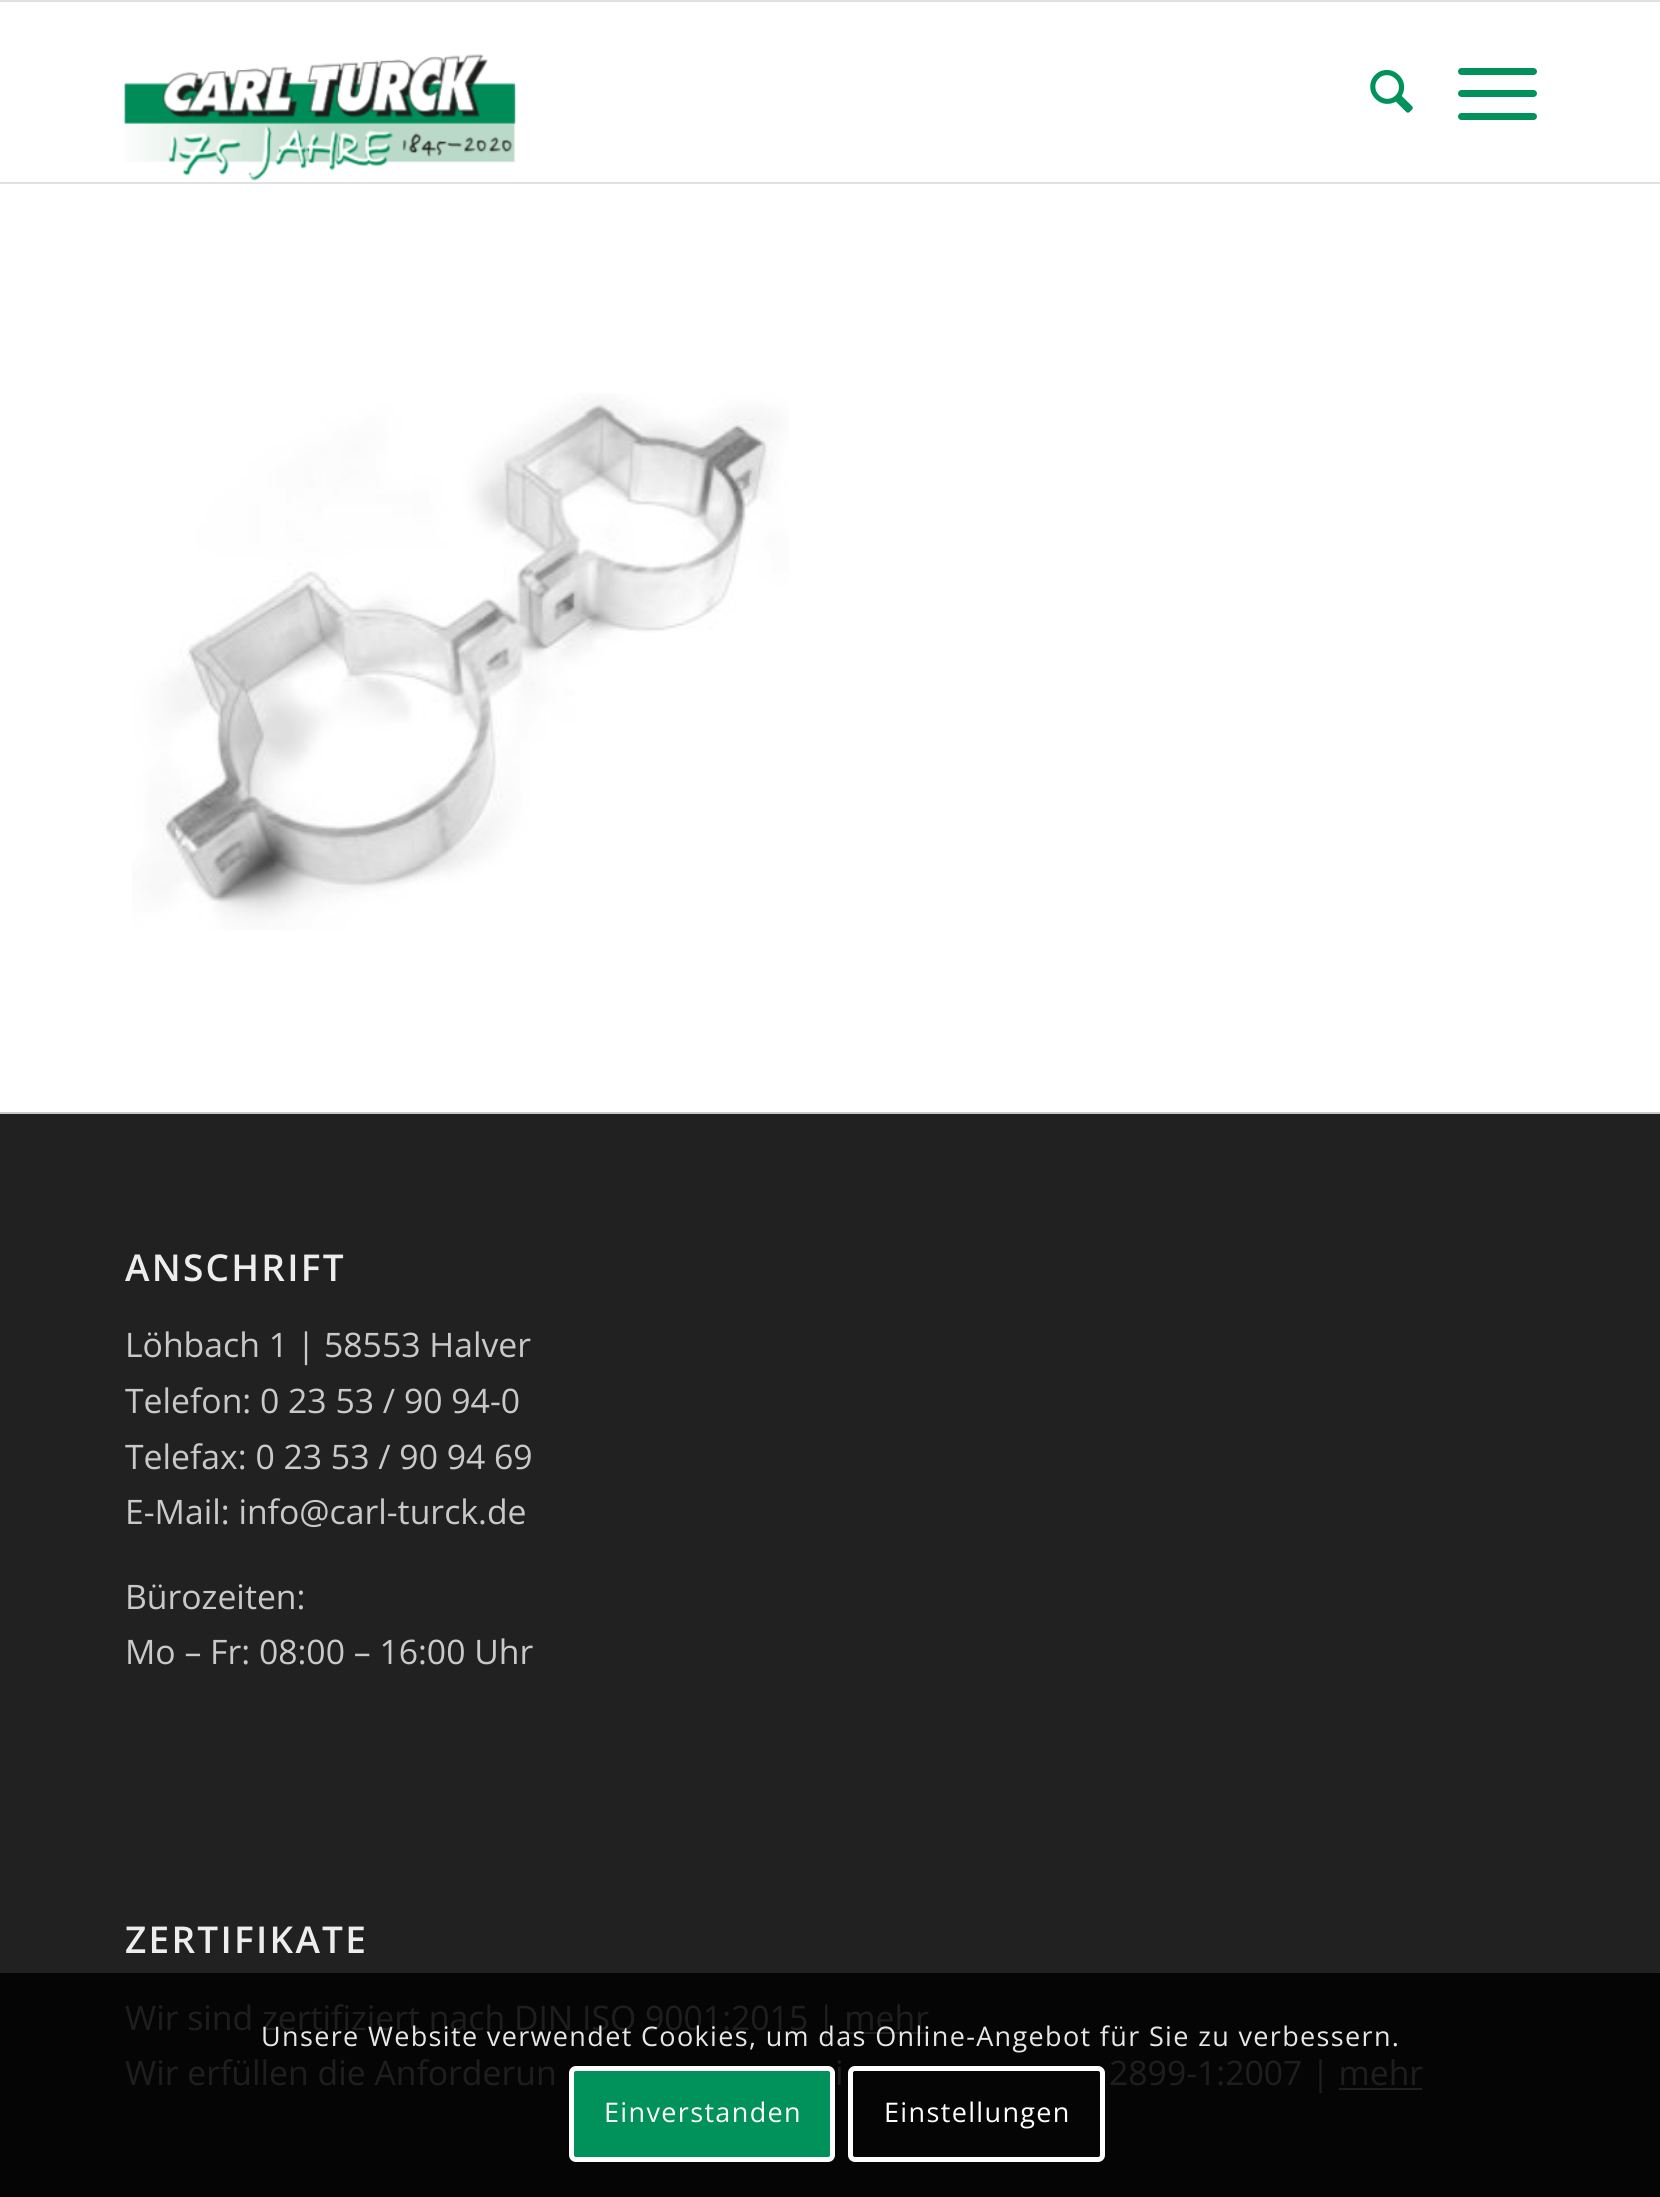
import math
import cairo



def draw_spaced(context, x, y, s, letter, word):
    context.move_to(x, y)
    for ch in s:
        context.show_text(ch)
        context.rel_move_to(letter + word * (ch == ' '), 0)


def rounded_rect(context, x, y, w, h, r):
    context.new_sub_path()
    for i, (u, v) in enumerate([(x + w - r, y + h - r), (x + r, y + h - r), (x + r, y + r), (x + w - r, y + r)]):
        context.arc(u, v, r, i * math.pi / 2, (i + 1) * math.pi / 2)
    context.close_path()


def draw_image(context, path, x, y, w, h):
    context.save()
    context.set_source_surface(cairo.ImageSurface.create_from_png(path), x, y)
    context.rectangle(x, y, w, h)
    context.fill()
    context.restore()


def draw(context):
    context.set_source_rgb(1, 1, 1)
    context.paint()
    context.set_source_rgb(225 / 255, 225 / 255, 225 / 255)
    context.rectangle(0, 0, 1660, 2)
    context.fill()
    context.rectangle(0, 182, 1660, 2)
    context.fill()
    draw_image(context, "images/1.png", 123, 54, 393, 127)
    draw_image(context, "images/2.png", 1370, 70, 43, 43)
    context.set_source_rgb(0, 146 / 255, 90 / 255)
    rounded_rect(context, 1458, 90, 79, 7, 3.5)
    context.fill()
    rounded_rect(context, 1458, 68, 79, 7, 3.5)
    context.fill()
    rounded_rect(context, 1458, 113, 79, 7, 3.5)
    context.fill()
    draw_image(context, "images/3.png", 132, 393, 657, 537)
    context.set_source_rgb(33 / 255, 33 / 255, 33 / 255)
    context.rectangle(0, 1114, 1660, 859)
    context.fill()
    context.set_source_rgb(5 / 255, 5 / 255, 5 / 255)
    context.rectangle(0, 1973, 1660, 224)
    context.fill()
    context.set_source_rgb(201 / 255, 201 / 255, 201 / 255)
    context.rectangle(0, 1112, 1660, 2)
    context.fill()
    context.set_source_rgb(30 / 255, 30 / 255, 30 / 255)
    context.rectangle(844, 2032, 85, 2)
    context.fill()
    context.rectangle(1339, 2088, 83, 2)
    context.fill()
    context.set_source_rgb(0, 146 / 255, 90 / 255)
    rounded_rect(context, 571.5, 2068.5, 261, 91, 4.5)
    context.fill_preserve()
    context.set_source_rgb(1, 1, 1)
    context.set_line_width(5)
    context.stroke()
    rounded_rect(context, 850.5, 2068.5, 252, 91, 4.5)
    context.stroke()
    context.select_font_face("Open Sans SemiBold")
    context.set_font_size(37)
    context.set_source_rgb(237 / 255, 237 / 255, 237 / 255)
    draw_spaced(context, 125, 1281, "ANSCHRIFT", 2.25, 0)
    context.select_font_face("Open Sans")
    context.set_font_size(33.75)
    context.set_source_rgb(201 / 255, 201 / 255, 201 / 255)
    context.move_to(125, 1357)
    context.show_text("Löhbach 1 | 58553 Halver")
    context.move_to(125, 1413)
    context.show_text("Telefon: 0 23 53 / 90 94-0")
    context.move_to(125, 1469)
    context.show_text("Telefax: 0 23 53 / 90 94 69")
    context.move_to(125, 1524)
    context.show_text("E-Mail: info@carl-turck.de")
    context.move_to(125, 1609)
    context.show_text("Bürozeiten:")
    context.move_to(125, 1664)
    context.show_text("Mo – Fr: 08:00 – 16:00 Uhr")
    context.select_font_face("Open Sans SemiBold")
    context.set_font_size(37)
    context.set_source_rgb(237 / 255, 237 / 255, 237 / 255)
    draw_spaced(context, 125, 1953, "ZERTIFIKATE", 2.25, 0)
    context.select_font_face("Open Sans")
    context.set_font_size(33.75)
    context.set_source_rgb(30 / 255, 30 / 255, 30 / 255)
    context.move_to(125, 2030)
    context.show_text("Wir sind zertifiziert nach DIN ISO 9001:2015 | mehr")
    context.move_to(125, 2085)
    context.show_text("Wir erfüllen die Anforderun")
    context.move_to(835, 2085)
    context.show_text("i")
    context.move_to(1109, 2085)
    context.show_text("2899-1:2007 | mehr")
    context.set_font_size(27)
    context.set_source_rgb(230 / 255, 230 / 255, 230 / 255)
    draw_spaced(context, 261, 2046, "Unsere Website verwendet Cookies, um das Online-Angebot für Sie zu verbessern.", 1.35, 0)
    context.set_source_rgb(1, 1, 1)
    draw_spaced(context, 604, 2122, "Einverstanden", 1.35, 0)
    draw_spaced(context, 884, 2122, "Einstellungen", 1.35, 0)


surface = cairo.ImageSurface(cairo.Format.RGB24, 1660, 2197)
context = cairo.Context(surface)
options = cairo.FontOptions()
options.set_hint_metrics(cairo.HintMetrics.OFF)
options.set_hint_style(cairo.HintStyle.NONE)
context.set_font_options(options)
context.set_miter_limit(4)
draw(context)
surface.write_to_png("out.png")
